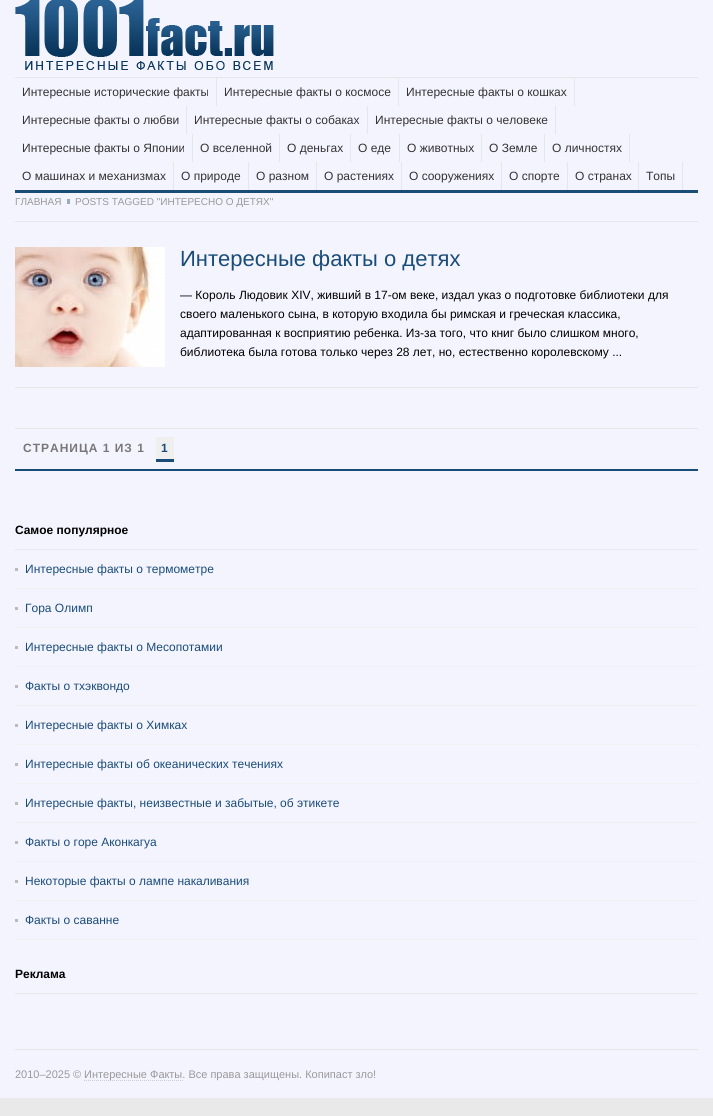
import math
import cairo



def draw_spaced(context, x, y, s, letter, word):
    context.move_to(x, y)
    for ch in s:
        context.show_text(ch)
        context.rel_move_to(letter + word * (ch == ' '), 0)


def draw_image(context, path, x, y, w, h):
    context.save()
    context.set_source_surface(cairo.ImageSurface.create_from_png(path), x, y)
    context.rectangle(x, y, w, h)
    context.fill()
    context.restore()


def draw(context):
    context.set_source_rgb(233 / 255, 233 / 255, 233 / 255)
    context.paint()
    context.set_source_rgb(244 / 255, 244 / 255, 1)
    context.rectangle(0, 0, 713, 1098)
    context.fill()
    draw_image(context, "images/1.png", 15, 0, 259, 70)
    context.set_source_rgb(230 / 255, 230 / 255, 230 / 255)
    context.rectangle(15, 77, 683, 1)
    context.fill()
    context.set_source_rgb(26 / 255, 76 / 255, 120 / 255)
    context.rectangle(15, 190, 683, 3)
    context.fill()
    context.set_source_rgb(230 / 255, 230 / 255, 230 / 255)
    context.rectangle(216, 78, 1, 28)
    context.fill()
    context.rectangle(398, 78, 1, 28)
    context.fill()
    context.rectangle(574, 78, 1, 28)
    context.fill()
    context.rectangle(186, 106, 1, 28)
    context.fill()
    context.rectangle(367, 106, 1, 28)
    context.fill()
    context.rectangle(555, 106, 1, 28)
    context.fill()
    context.rectangle(192, 134, 1, 28)
    context.fill()
    context.rectangle(279, 134, 1, 28)
    context.fill()
    context.rectangle(350, 134, 1, 28)
    context.fill()
    context.rectangle(399, 134, 1, 28)
    context.fill()
    context.rectangle(481, 134, 1, 28)
    context.fill()
    context.rectangle(544, 134, 1, 28)
    context.fill()
    context.rectangle(629, 134, 1, 28)
    context.fill()
    context.rectangle(173, 162, 1, 28)
    context.fill()
    context.rectangle(248, 162, 1, 28)
    context.fill()
    context.rectangle(316, 162, 1, 28)
    context.fill()
    context.rectangle(401, 162, 1, 28)
    context.fill()
    context.rectangle(501, 162, 1, 28)
    context.fill()
    context.rectangle(567, 162, 1, 28)
    context.fill()
    context.rectangle(638, 162, 1, 28)
    context.fill()
    context.rectangle(682, 162, 1, 28)
    context.fill()
    context.rectangle(15, 221, 683, 1)
    context.fill()
    context.set_source_rgb(154 / 255, 171 / 255, 188 / 255)
    context.rectangle(67, 199, 3, 5)
    context.fill()
    context.set_source_rgb(230 / 255, 230 / 255, 230 / 255)
    context.rectangle(15, 387, 683, 1)
    context.fill()
    draw_image(context, "images/2.png", 15, 247, 150, 120)
    context.rectangle(15, 428, 683, 1)
    context.fill()
    context.set_source_rgb(26 / 255, 76 / 255, 120 / 255)
    context.rectangle(15, 469, 683, 2)
    context.fill()
    context.set_source_rgb(239 / 255, 239 / 255, 239 / 255)
    context.rectangle(156, 437, 18, 22)
    context.fill()
    context.set_source_rgb(26 / 255, 76 / 255, 120 / 255)
    context.rectangle(156, 459, 18, 3)
    context.fill()
    context.set_source_rgb(233 / 255, 233 / 255, 233 / 255)
    context.rectangle(15, 549, 683, 1)
    context.fill()
    context.set_source_rgb(187 / 255, 187 / 255, 187 / 255)
    context.rectangle(15, 568, 3, 3)
    context.fill()
    context.set_source_rgb(240 / 255, 240 / 255, 240 / 255)
    context.rectangle(15, 588, 683, 1)
    context.fill()
    context.set_source_rgb(187 / 255, 187 / 255, 187 / 255)
    context.rectangle(15, 607, 3, 3)
    context.fill()
    context.set_source_rgb(240 / 255, 240 / 255, 240 / 255)
    context.rectangle(15, 627, 683, 1)
    context.fill()
    context.set_source_rgb(187 / 255, 187 / 255, 187 / 255)
    context.rectangle(15, 646, 3, 3)
    context.fill()
    context.set_source_rgb(240 / 255, 240 / 255, 240 / 255)
    context.rectangle(15, 666, 683, 1)
    context.fill()
    context.set_source_rgb(187 / 255, 187 / 255, 187 / 255)
    context.rectangle(15, 685, 3, 3)
    context.fill()
    context.set_source_rgb(240 / 255, 240 / 255, 240 / 255)
    context.rectangle(15, 705, 683, 1)
    context.fill()
    context.set_source_rgb(187 / 255, 187 / 255, 187 / 255)
    context.rectangle(15, 724, 3, 3)
    context.fill()
    context.set_source_rgb(240 / 255, 240 / 255, 240 / 255)
    context.rectangle(15, 744, 683, 1)
    context.fill()
    context.set_source_rgb(187 / 255, 187 / 255, 187 / 255)
    context.rectangle(15, 763, 3, 3)
    context.fill()
    context.set_source_rgb(240 / 255, 240 / 255, 240 / 255)
    context.rectangle(15, 783, 683, 1)
    context.fill()
    context.set_source_rgb(187 / 255, 187 / 255, 187 / 255)
    context.rectangle(15, 802, 3, 3)
    context.fill()
    context.set_source_rgb(240 / 255, 240 / 255, 240 / 255)
    context.rectangle(15, 822, 683, 1)
    context.fill()
    context.set_source_rgb(187 / 255, 187 / 255, 187 / 255)
    context.rectangle(15, 841, 3, 3)
    context.fill()
    context.set_source_rgb(240 / 255, 240 / 255, 240 / 255)
    context.rectangle(15, 861, 683, 1)
    context.fill()
    context.set_source_rgb(187 / 255, 187 / 255, 187 / 255)
    context.rectangle(15, 880, 3, 3)
    context.fill()
    context.set_source_rgb(240 / 255, 240 / 255, 240 / 255)
    context.rectangle(15, 900, 683, 1)
    context.fill()
    context.set_source_rgb(187 / 255, 187 / 255, 187 / 255)
    context.rectangle(15, 919, 3, 3)
    context.fill()
    context.set_source_rgb(240 / 255, 240 / 255, 240 / 255)
    context.rectangle(15, 939, 683, 1)
    context.fill()
    context.set_source_rgb(233 / 255, 233 / 255, 233 / 255)
    context.rectangle(15, 993, 683, 1)
    context.fill()
    context.set_source_rgb(230 / 255, 230 / 255, 230 / 255)
    context.rectangle(15, 1049, 683, 1)
    context.fill()
    context.new_path()
    context.move_to(84, 1080.5)
    context.line_to(183, 1080.5)
    context.set_source_rgb(204 / 255, 204 / 255, 204 / 255)
    context.set_line_width(1)
    context.set_dash([1, 1])
    context.stroke()
    context.select_font_face("Liberation Sans")
    context.set_font_size(12)
    context.set_source_rgb(51 / 255, 51 / 255, 51 / 255)
    context.move_to(22, 96)
    context.show_text("Интересные исторические факты")
    context.move_to(224, 96)
    context.show_text("Интересные факты о космосе")
    context.move_to(406, 96)
    context.show_text("Интересные факты о кошках")
    context.move_to(22, 124)
    context.show_text("Интересные факты о любви")
    context.move_to(194, 124)
    context.show_text("Интересные факты о собаках")
    context.move_to(375, 124)
    context.show_text("Интересные факты о человеке")
    context.move_to(22, 152)
    context.show_text("Интересные факты о Японии")
    context.move_to(200, 152)
    context.show_text("О вселенной")
    context.move_to(287, 152)
    context.show_text("О деньгах")
    context.move_to(358, 152)
    context.show_text("О еде")
    context.move_to(407, 152)
    context.show_text("О животных")
    context.move_to(489, 152)
    context.show_text("О Земле")
    context.move_to(552, 152)
    context.show_text("О личностях")
    context.move_to(22, 180)
    context.show_text("О машинах и механизмах")
    context.move_to(181, 180)
    context.show_text("О природе")
    context.move_to(256, 180)
    context.show_text("О разном")
    context.move_to(324, 180)
    context.show_text("О растениях")
    context.move_to(409, 180)
    context.show_text("О сооружениях")
    context.move_to(509, 180)
    context.show_text("О спорте")
    context.move_to(575, 180)
    context.show_text("О странах")
    context.move_to(646, 180)
    context.show_text("Топы")
    context.set_font_size(10)
    context.set_source_rgb(153 / 255, 153 / 255, 153 / 255)
    context.move_to(15, 205)
    context.show_text("ГЛАВНАЯ")
    context.move_to(75, 205)
    context.show_text("POSTS TAGGED \"ИНТЕРЕСНО О ДЕТЯХ\"")
    context.set_font_size(22)
    context.set_source_rgb(26 / 255, 76 / 255, 120 / 255)
    context.move_to(180, 266)
    context.show_text("Интересные факты о детях")
    context.set_font_size(12)
    context.set_source_rgb(0, 0, 0)
    context.move_to(180, 299)
    context.show_text("— Король Людовик XIV, живший в 17-ом веке, издал указ о подготовке библиотеки для")
    context.move_to(180, 318)
    context.show_text("своего маленького сына, в которую входила бы римская и греческая классика,")
    context.move_to(180, 337)
    context.show_text("адаптированная к восприятию ребенка. Из-за того, что книг было слишком много,")
    context.move_to(180, 356)
    context.show_text("библиотека была готова только через 28 лет, но, естественно королевскому ...")
    context.select_font_face("Liberation Sans", cairo.FontSlant.NORMAL, cairo.FontWeight.BOLD)
    context.set_source_rgb(119 / 255, 119 / 255, 119 / 255)
    draw_spaced(context, 23, 452, "СТРАНИЦА 1 ИЗ 1", 1, 0)
    context.set_source_rgb(26 / 255, 76 / 255, 120 / 255)
    draw_spaced(context, 161, 452, "1", 1, 0)
    context.set_source_rgb(0, 0, 0)
    context.move_to(15, 534)
    context.show_text("Самое популярное")
    context.select_font_face("Liberation Sans")
    context.set_source_rgb(26 / 255, 76 / 255, 120 / 255)
    context.move_to(25, 573)
    context.show_text("Интересные факты о термометре")
    context.move_to(25, 612)
    context.show_text("Гора Олимп")
    context.move_to(25, 651)
    context.show_text("Интересные факты о Месопотамии")
    context.move_to(25, 690)
    context.show_text("Факты о тхэквондо")
    context.move_to(25, 729)
    context.show_text("Интересные факты о Химках")
    context.move_to(25, 768)
    context.show_text("Интересные факты об океанических течениях")
    context.move_to(25, 807)
    context.show_text("Интересные факты, неизвестные и забытые, об этикете")
    context.move_to(25, 846)
    context.show_text("Факты о горе Аконкагуа")
    context.move_to(25, 885)
    context.show_text("Некоторые факты о лампе накаливания")
    context.move_to(25, 924)
    context.show_text("Факты о саванне")
    context.select_font_face("Liberation Sans", cairo.FontSlant.NORMAL, cairo.FontWeight.BOLD)
    context.set_source_rgb(0, 0, 0)
    context.move_to(15, 978)
    context.show_text("Реклама")
    context.select_font_face("Liberation Sans")
    context.set_font_size(11)
    context.set_source_rgb(153 / 255, 153 / 255, 153 / 255)
    context.move_to(15, 1078)
    context.show_text("2010–2025 ©")
    context.move_to(84, 1078)
    context.show_text("Интересные Факты. Все права защищены. Копипаст зло!")


surface = cairo.ImageSurface(cairo.Format.RGB24, 713, 1116)
context = cairo.Context(surface)
options = cairo.FontOptions()
options.set_hint_metrics(cairo.HintMetrics.OFF)
options.set_hint_style(cairo.HintStyle.NONE)
context.set_font_options(options)
context.set_miter_limit(4)
draw(context)
surface.write_to_png("out.png")
